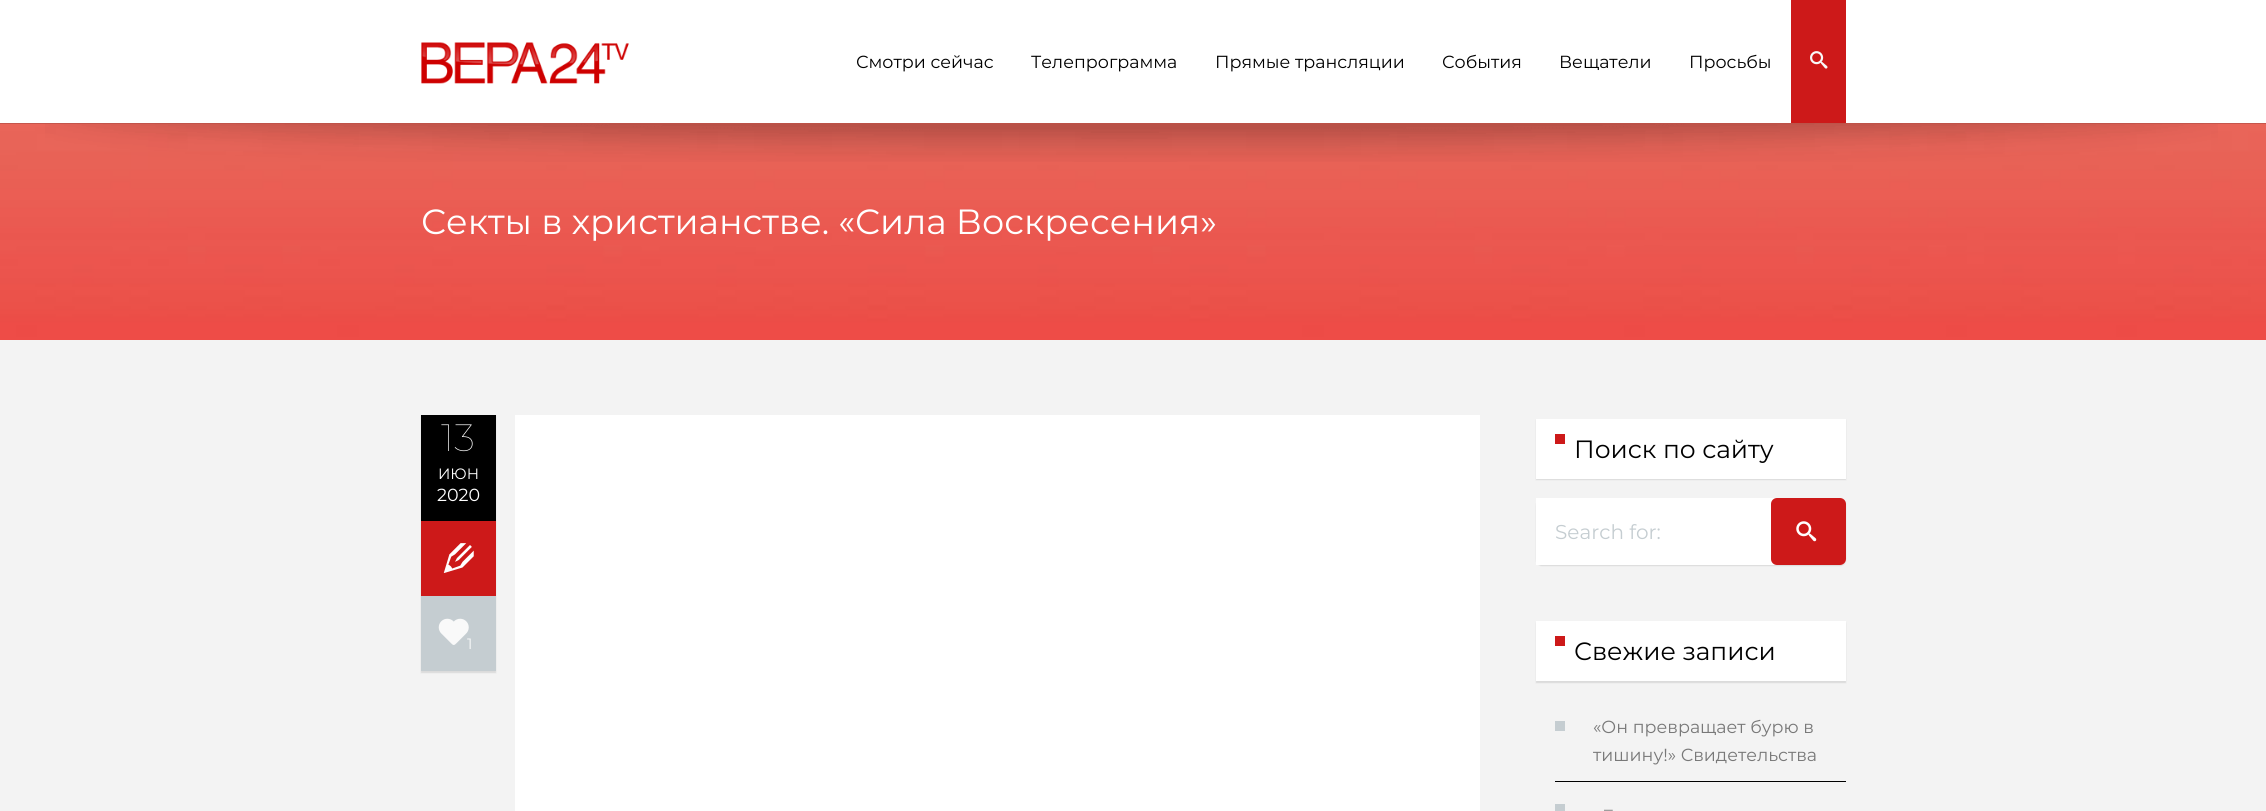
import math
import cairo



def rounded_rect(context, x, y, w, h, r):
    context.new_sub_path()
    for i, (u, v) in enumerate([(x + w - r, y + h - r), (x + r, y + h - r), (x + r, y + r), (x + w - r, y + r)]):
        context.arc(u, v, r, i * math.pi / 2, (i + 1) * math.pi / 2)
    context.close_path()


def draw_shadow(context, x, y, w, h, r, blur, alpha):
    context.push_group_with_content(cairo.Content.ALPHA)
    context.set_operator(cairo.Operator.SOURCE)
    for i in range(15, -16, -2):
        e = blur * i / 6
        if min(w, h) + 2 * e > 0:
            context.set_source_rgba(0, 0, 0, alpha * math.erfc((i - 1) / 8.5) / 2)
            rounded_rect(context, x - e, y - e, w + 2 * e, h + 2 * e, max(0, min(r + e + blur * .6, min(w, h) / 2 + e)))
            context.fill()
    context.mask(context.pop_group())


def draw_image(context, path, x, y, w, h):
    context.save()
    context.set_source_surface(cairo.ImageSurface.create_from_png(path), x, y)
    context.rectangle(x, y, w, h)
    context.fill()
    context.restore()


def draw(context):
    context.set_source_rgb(243 / 255, 243 / 255, 243 / 255)
    context.paint()
    context.set_source_rgb(1, 1, 1)
    context.rectangle(0, 0, 2266, 123)
    context.fill()
    draw_image(context, "images/1.png", 421, 42, 208, 42)
    context.set_source_rgb(205 / 255, 25 / 255, 25 / 255)
    context.rectangle(1791, 0, 55, 123)
    context.fill()
    draw_image(context, "images/2.png", 1810, 51, 18, 18)
    draw_image(context, "images/3.png", 0, 124, 2266, 216)
    context.set_source_rgb(198 / 255, 86 / 255, 76 / 255)
    context.rectangle(0, 123, 2266, 1)
    context.fill()
    draw_image(context, "images/4.png", 45, 123, 2173, 39)
    context.set_source_rgb(0, 0, 0)
    draw_shadow(context, 421, 416, 75, 257, 0, 0.5, 0.1)
    context.set_source_rgb(0, 0, 0)
    context.rectangle(421, 415, 75, 106)
    context.fill()
    context.set_source_rgb(205 / 255, 25 / 255, 25 / 255)
    context.rectangle(421, 521, 75, 75)
    context.fill()
    draw_image(context, "images/5.png", 443, 543, 31, 30)
    context.set_source_rgb(197 / 255, 205 / 255, 209 / 255)
    context.rectangle(421, 596, 75, 75)
    context.fill()
    draw_image(context, "images/6.png", 438, 618, 31, 27)
    context.set_source_rgb(1, 1, 1)
    context.rectangle(515, 415, 965, 396)
    context.fill()
    context.set_source_rgb(0, 0, 0)
    draw_shadow(context, 1536, 420, 310, 60, 0, 0.5, 0.1)
    context.set_source_rgb(1, 1, 1)
    context.rectangle(1536, 419, 310, 60)
    context.fill()
    context.set_source_rgb(205 / 255, 25 / 255, 25 / 255)
    context.rectangle(1555, 434, 10, 10)
    context.fill()
    context.set_source_rgb(0, 0, 0)
    draw_shadow(context, 1536, 499, 310, 67, 6, 0.5, 0.1)
    context.set_source_rgb(1, 1, 1)
    context.new_path()
    context.move_to(1536, 498)
    context.line_to(1840, 498)
    context.curve_to(1843.5, 498, 1846, 500.5, 1846, 504)
    context.line_to(1846, 559)
    context.curve_to(1846, 562.5, 1843.5, 565, 1840, 565)
    context.line_to(1536, 565)
    context.close_path()
    context.fill()
    context.set_source_rgb(205 / 255, 25 / 255, 25 / 255)
    rounded_rect(context, 1771, 498, 75, 67, 6)
    context.fill()
    draw_image(context, "images/7.png", 1796, 521, 21, 21)
    context.set_source_rgb(0, 0, 0)
    draw_shadow(context, 1536, 623, 310, 60, 0, 0.5, 0.1)
    context.set_source_rgb(1, 1, 1)
    context.rectangle(1536, 621, 310, 60)
    context.fill()
    context.set_source_rgb(205 / 255, 25 / 255, 25 / 255)
    context.rectangle(1555, 636, 10, 10)
    context.fill()
    context.set_source_rgb(0, 0, 0)
    context.rectangle(1555, 781, 291, 1)
    context.fill()
    context.set_source_rgb(197 / 255, 205 / 255, 209 / 255)
    context.rectangle(1555, 721, 10, 10)
    context.fill()
    context.rectangle(1555, 804, 10, 7)
    context.fill()
    context.select_font_face("Montserrat")
    context.set_font_size(17.5)
    context.set_source_rgb(0, 0, 0)
    context.move_to(856, 68)
    context.show_text("Смотри сейчас")
    context.move_to(1031, 68)
    context.show_text("Телепрограмма")
    context.move_to(1215, 68)
    context.show_text("Прямые трансляции")
    context.move_to(1442, 68)
    context.show_text("События")
    context.move_to(1559, 68)
    context.show_text("Вещатели")
    context.move_to(1689, 68)
    context.show_text("Просьбы")
    context.set_font_size(35)
    context.set_source_rgb(1, 1, 1)
    context.move_to(421, 234)
    context.show_text("Секты в христианстве. «Сила Воскресения»")
    context.select_font_face("Montserrat Thin")
    context.set_font_size(38)
    context.move_to(441, 451)
    context.show_text("13")
    context.select_font_face("Montserrat")
    context.set_font_size(15)
    context.move_to(438, 479)
    context.show_text("ИЮН")
    context.set_font_size(17.5)
    context.move_to(437, 501)
    context.show_text("2020")
    context.set_font_size(15)
    context.set_source_rgb(249 / 255, 249 / 255, 249 / 255)
    context.move_to(467, 649)
    context.show_text("1")
    context.set_font_size(25)
    context.set_source_rgb(0, 0, 0)
    context.move_to(1574, 458)
    context.show_text("Поиск по сайту")
    context.set_font_size(20)
    context.set_source_rgb(197 / 255, 205 / 255, 209 / 255)
    context.move_to(1555, 539)
    context.show_text("Search for:")
    context.set_font_size(25)
    context.set_source_rgb(0, 0, 0)
    context.move_to(1574, 660)
    context.show_text("Свежие записи")
    context.set_font_size(17.5)
    context.set_source_rgb(120 / 255, 120 / 255, 120 / 255)
    context.move_to(1593, 733)
    context.show_text("«Он превращает бурю в")
    context.move_to(1593, 761)
    context.show_text("тишину!» Свидетельства")
    context.move_to(1604, 815)
    context.show_text("–")


surface = cairo.ImageSurface(cairo.Format.RGB24, 2266, 811)
context = cairo.Context(surface)
options = cairo.FontOptions()
options.set_hint_metrics(cairo.HintMetrics.OFF)
options.set_hint_style(cairo.HintStyle.NONE)
context.set_font_options(options)
context.set_miter_limit(4)
draw(context)
surface.write_to_png("out.png")
